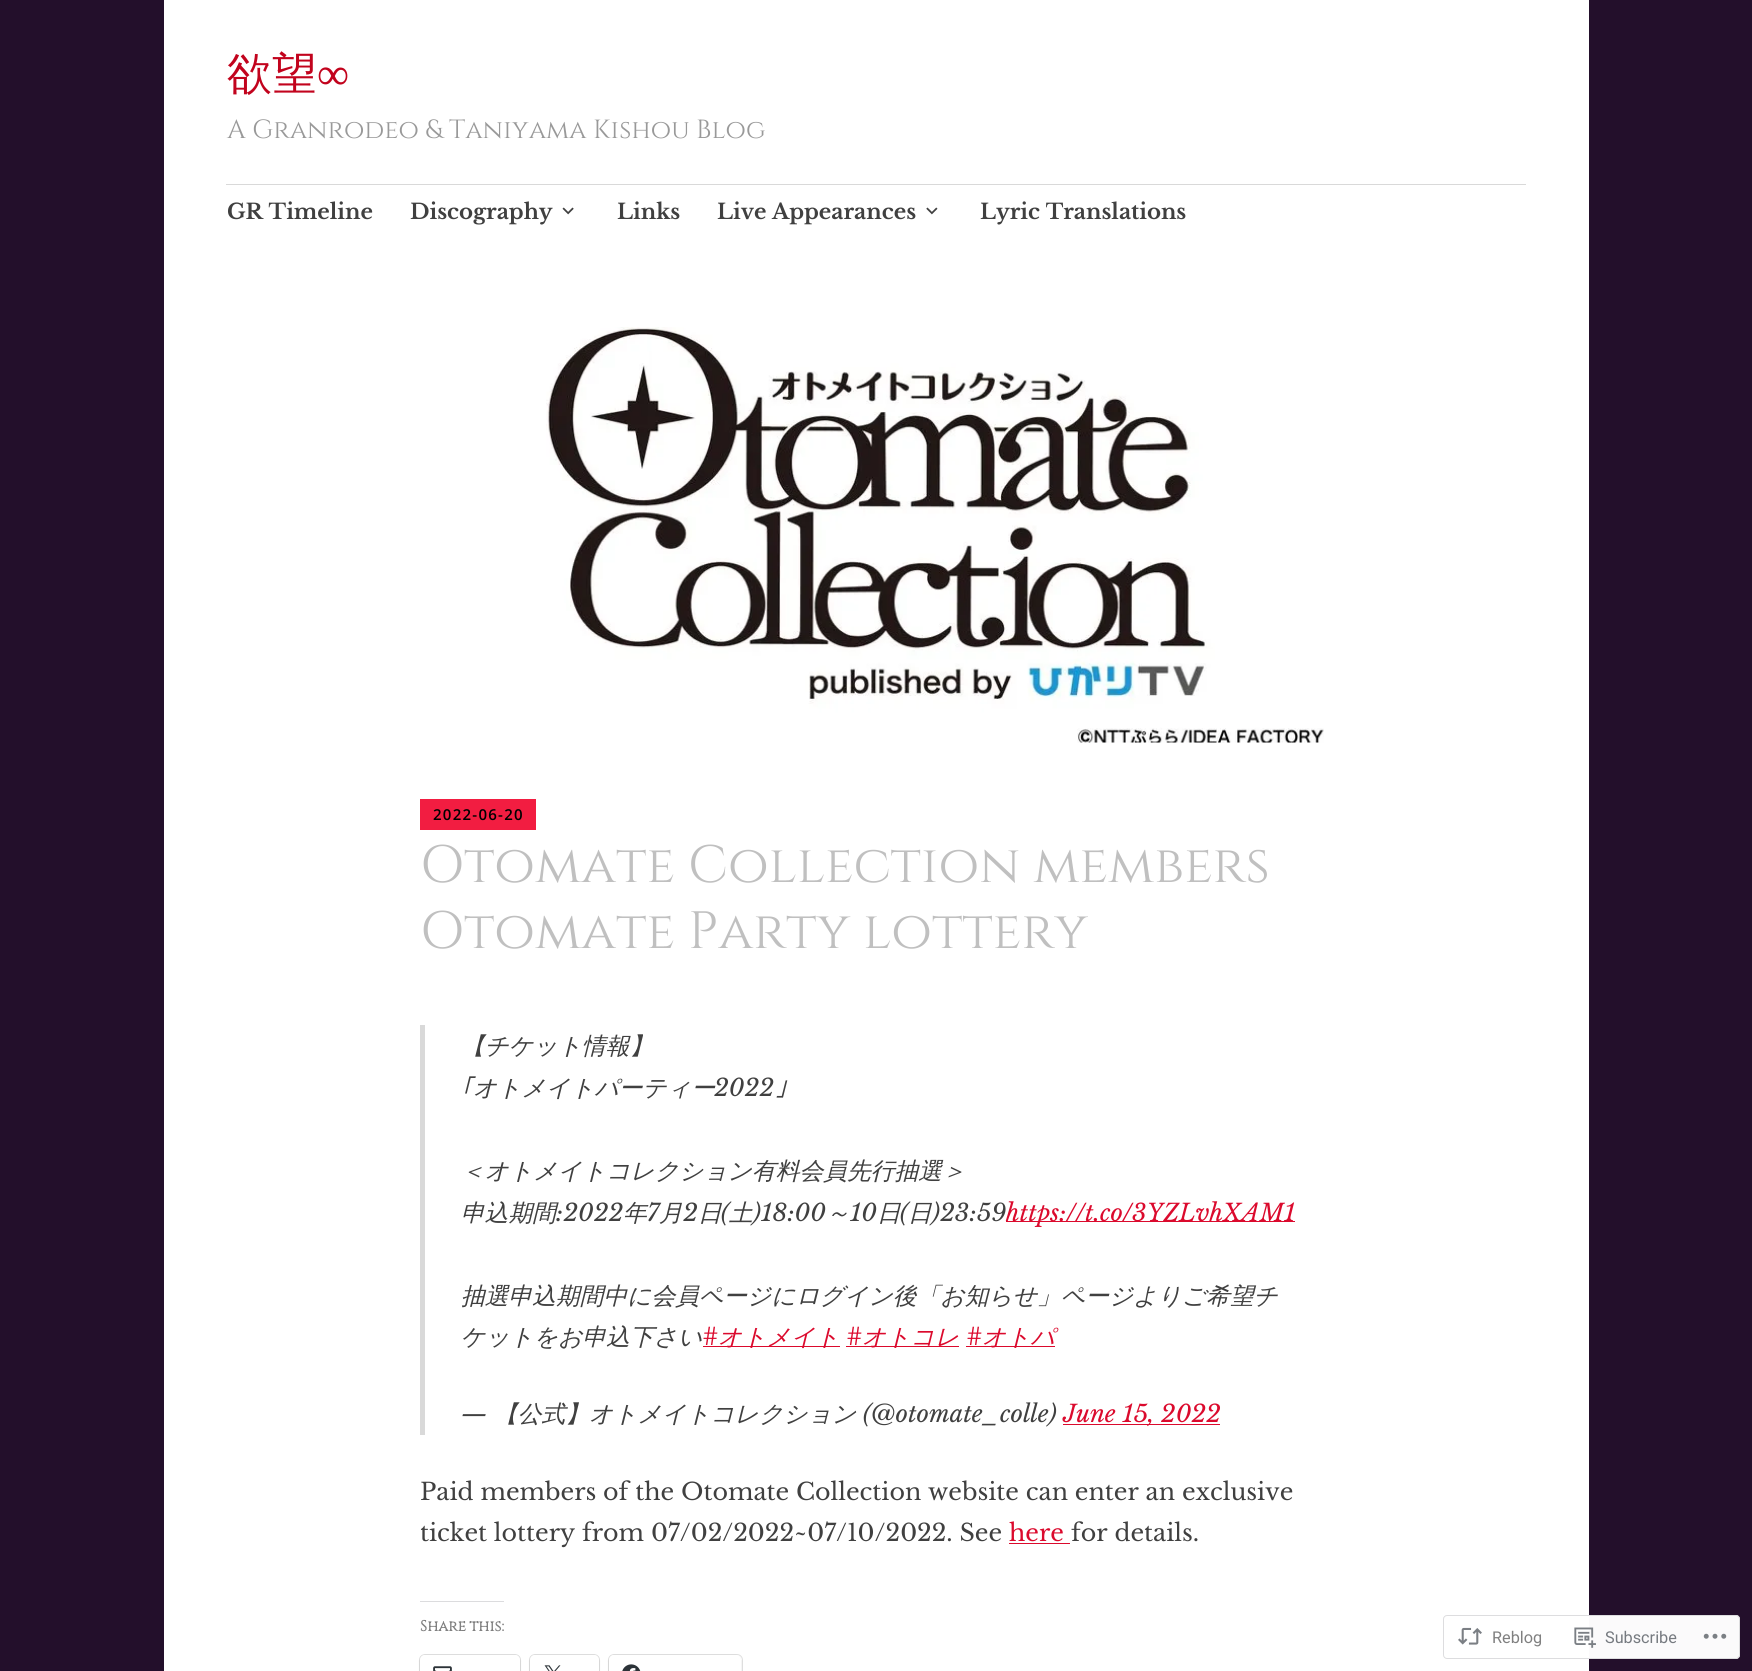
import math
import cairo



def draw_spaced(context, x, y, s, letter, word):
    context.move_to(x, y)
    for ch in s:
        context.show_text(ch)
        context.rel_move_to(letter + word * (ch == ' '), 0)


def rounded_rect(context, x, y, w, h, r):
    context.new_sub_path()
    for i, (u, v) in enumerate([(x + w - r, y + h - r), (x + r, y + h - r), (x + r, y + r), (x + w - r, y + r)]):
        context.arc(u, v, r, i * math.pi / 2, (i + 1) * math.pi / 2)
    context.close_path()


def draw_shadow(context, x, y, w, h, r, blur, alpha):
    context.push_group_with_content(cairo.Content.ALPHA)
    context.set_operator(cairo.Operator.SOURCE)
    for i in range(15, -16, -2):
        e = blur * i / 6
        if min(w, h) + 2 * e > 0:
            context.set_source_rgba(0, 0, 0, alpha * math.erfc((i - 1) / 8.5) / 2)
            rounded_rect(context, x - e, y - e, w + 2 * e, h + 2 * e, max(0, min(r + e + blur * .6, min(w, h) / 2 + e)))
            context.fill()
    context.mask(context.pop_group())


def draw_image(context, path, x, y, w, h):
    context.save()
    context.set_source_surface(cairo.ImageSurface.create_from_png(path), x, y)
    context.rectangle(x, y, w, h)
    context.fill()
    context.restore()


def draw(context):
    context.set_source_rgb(35 / 255, 15 / 255, 43 / 255)
    context.paint()
    context.set_source_rgb(1, 1, 1)
    context.rectangle(164, 0, 1425, 1671)
    context.fill()
    context.set_source_rgb(217 / 255, 217 / 255, 217 / 255)
    context.rectangle(226, 184, 1300, 1)
    context.fill()
    draw_image(context, "images/1.png", 562, 207, 12, 8)
    draw_image(context, "images/2.png", 926, 207, 12, 8)
    draw_image(context, "images/3.png", 546, 327, 778, 416)
    context.set_source_rgb(242 / 255, 29 / 255, 65 / 255)
    context.rectangle(420, 799, 116, 31)
    context.fill()
    context.set_source_rgb(217 / 255, 217 / 255, 217 / 255)
    context.rectangle(420, 1025, 5, 410)
    context.fill()
    context.set_source_rgb(219 / 255, 10 / 255, 45 / 255)
    context.rectangle(1006, 1221, 289, 1)
    context.fill()
    context.rectangle(703, 1346, 137, 1)
    context.fill()
    context.rectangle(846, 1346, 113, 1)
    context.fill()
    context.rectangle(966, 1346, 89, 1)
    context.fill()
    context.rectangle(1063, 1424, 157, 1)
    context.fill()
    context.rectangle(1009, 1543, 61, 1)
    context.fill()
    context.set_source_rgb(220 / 255, 220 / 255, 222 / 255)
    context.rectangle(420, 1601, 84, 1)
    context.fill()
    rounded_rect(context, 419.5, 1654.5, 101, 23, 5.5)
    context.set_source_rgb(224 / 255, 224 / 255, 224 / 255)
    context.set_line_width(1)
    context.stroke()
    context.set_source_rgb(0, 0, 0)
    draw_shadow(context, 420, 1656, 100, 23, 5, 1, 0.12)
    context.set_source_rgb(1, 1, 1)
    rounded_rect(context, 420, 1655, 100, 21, 5)
    context.fill()
    draw_image(context, "images/4.png", 433, 1666, 19, 5)
    rounded_rect(context, 529.5, 1654.5, 70, 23, 5.5)
    context.set_source_rgb(224 / 255, 224 / 255, 224 / 255)
    context.stroke()
    context.set_source_rgb(0, 0, 0)
    draw_shadow(context, 530, 1656, 69, 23, 5, 1, 0.12)
    context.set_source_rgb(1, 1, 1)
    rounded_rect(context, 530, 1655, 69, 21, 5)
    context.fill()
    draw_image(context, "images/5.png", 544, 1665, 17, 6)
    rounded_rect(context, 608.5, 1654.5, 134, 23, 5.5)
    context.set_source_rgb(224 / 255, 224 / 255, 224 / 255)
    context.stroke()
    context.set_source_rgb(0, 0, 0)
    draw_shadow(context, 609, 1656, 132, 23, 5, 1, 0.12)
    context.set_source_rgb(1, 1, 1)
    rounded_rect(context, 609, 1655, 132, 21, 5)
    context.fill()
    draw_image(context, "images/6.png", 622, 1664, 19, 7)
    context.set_source_rgba(1, 1, 1, 0.98)
    rounded_rect(context, 1443, 1615, 297, 44, 4)
    context.fill()
    rounded_rect(context, 1443.5, 1615.5, 296, 43, 3.5)
    context.set_source_rgba(220 / 255, 220 / 255, 222 / 255, 0.98)
    context.stroke()
    draw_image(context, "images/7.png", 1458, 1627, 24, 18)
    draw_image(context, "images/8.png", 1574, 1627, 22, 21)
    draw_image(context, "images/9.png", 1703, 1633, 24, 6)
    context.select_font_face("WenQuanYi Zen Hei Medium")
    context.set_font_size(45)
    context.set_source_rgb(194 / 255, 3 / 255, 29 / 255)
    context.move_to(227, 89)
    context.show_text("欲望")
    context.select_font_face("Liberation Serif")
    context.move_to(317, 89)
    context.show_text("∞")
    context.select_font_face("Cinzel")
    context.set_font_size(26.25)
    context.set_source_rgb(153 / 255, 153 / 255, 153 / 255)
    context.move_to(227, 138)
    context.show_text("A Granrodeo & Taniyama Kishou Blog")
    context.select_font_face("Libre Baskerville", cairo.FontSlant.NORMAL, cairo.FontWeight.BOLD)
    context.set_font_size(21.25)
    context.set_source_rgb(64 / 255, 64 / 255, 64 / 255)
    context.move_to(227, 219)
    context.show_text("GR Timeline")
    context.move_to(410, 219)
    context.show_text("Discography")
    context.move_to(617, 219)
    context.show_text("Links")
    context.move_to(717, 219)
    context.show_text("Live Appearances")
    context.move_to(980, 219)
    context.show_text("Lyric Translations")
    context.select_font_face("Open Sans SemiBold")
    context.set_font_size(15)
    context.set_source_rgb(0, 0, 0)
    draw_spaced(context, 433, 820, "2022-06-20", 1.25, 0)
    context.select_font_face("Cinzel")
    context.set_font_size(52.5)
    context.set_source_rgb(192 / 255, 192 / 255, 192 / 255)
    context.move_to(420, 882)
    context.show_text("Otomate Collection members")
    context.move_to(420, 948)
    context.show_text("Otomate Party lottery")
    context.select_font_face("WenQuanYi Zen Hei Medium", cairo.FontSlant.ITALIC)
    context.set_font_size(23.75)
    context.set_source_rgb(64 / 255, 64 / 255, 64 / 255)
    context.move_to(461, 1054)
    context.show_text("【チケット情報】")
    context.select_font_face("IPAPGothic", cairo.FontSlant.ITALIC)
    context.move_to(461, 1096)
    context.show_text("｢")
    context.select_font_face("WenQuanYi Zen Hei Medium", cairo.FontSlant.ITALIC)
    context.move_to(473, 1096)
    context.show_text("オトメイトパーティー")
    context.select_font_face("Libre Baskerville", cairo.FontSlant.ITALIC)
    context.move_to(714, 1096)
    context.show_text("2022")
    context.select_font_face("IPAPGothic", cairo.FontSlant.ITALIC)
    context.move_to(775, 1096)
    context.show_text("｣")
    context.select_font_face("WenQuanYi Zen Hei Medium", cairo.FontSlant.ITALIC)
    context.move_to(461, 1179)
    context.show_text("＜オトメイトコレクション有料会員先行抽選＞")
    context.move_to(461, 1221)
    context.show_text("申込期間")
    context.select_font_face("Libre Baskerville", cairo.FontSlant.ITALIC)
    context.move_to(556, 1221)
    context.show_text(":2022")
    context.select_font_face("WenQuanYi Zen Hei Medium", cairo.FontSlant.ITALIC)
    context.move_to(623, 1221)
    context.show_text("年")
    context.select_font_face("Libre Baskerville", cairo.FontSlant.ITALIC)
    context.move_to(647, 1221)
    context.show_text("7")
    context.select_font_face("WenQuanYi Zen Hei Medium", cairo.FontSlant.ITALIC)
    context.move_to(659, 1221)
    context.show_text("月")
    context.select_font_face("Libre Baskerville", cairo.FontSlant.ITALIC)
    context.move_to(683, 1221)
    context.show_text("2")
    context.select_font_face("WenQuanYi Zen Hei Medium", cairo.FontSlant.ITALIC)
    context.move_to(698, 1221)
    context.show_text("日")
    context.select_font_face("Libre Baskerville", cairo.FontSlant.ITALIC)
    context.move_to(721, 1221)
    context.show_text("(")
    context.select_font_face("WenQuanYi Zen Hei Medium", cairo.FontSlant.ITALIC)
    context.move_to(729, 1221)
    context.show_text("土")
    context.select_font_face("Libre Baskerville", cairo.FontSlant.ITALIC)
    context.move_to(753, 1221)
    context.show_text(")18:00")
    context.select_font_face("WenQuanYi Zen Hei Medium", cairo.FontSlant.ITALIC)
    context.move_to(826, 1221)
    context.show_text("～")
    context.select_font_face("Libre Baskerville", cairo.FontSlant.ITALIC)
    context.move_to(850, 1221)
    context.show_text("10")
    context.select_font_face("WenQuanYi Zen Hei Medium", cairo.FontSlant.ITALIC)
    context.move_to(877, 1221)
    context.show_text("日")
    context.select_font_face("Libre Baskerville", cairo.FontSlant.ITALIC)
    context.move_to(900, 1221)
    context.show_text("(")
    context.select_font_face("WenQuanYi Zen Hei Medium", cairo.FontSlant.ITALIC)
    context.move_to(908, 1221)
    context.show_text("日")
    context.select_font_face("Libre Baskerville", cairo.FontSlant.ITALIC)
    context.move_to(932, 1221)
    context.show_text(")23:59")
    context.set_source_rgb(219 / 255, 10 / 255, 45 / 255)
    context.move_to(1006, 1221)
    context.show_text("https://t.co/3YZLvhXAM1")
    context.select_font_face("WenQuanYi Zen Hei Medium", cairo.FontSlant.ITALIC)
    context.set_source_rgb(64 / 255, 64 / 255, 64 / 255)
    context.move_to(461, 1304)
    context.show_text("抽選申込期間中に会員ページにログイン後「お知らせ」ページよりご希望チ")
    context.move_to(461, 1345)
    context.show_text("ケットをお申込下さい")
    context.select_font_face("Libre Baskerville", cairo.FontSlant.ITALIC)
    context.set_source_rgb(219 / 255, 10 / 255, 45 / 255)
    context.move_to(702, 1345)
    context.show_text("#")
    context.select_font_face("WenQuanYi Zen Hei Medium", cairo.FontSlant.ITALIC)
    context.move_to(718, 1345)
    context.show_text("オトメイト")
    context.select_font_face("Libre Baskerville", cairo.FontSlant.ITALIC)
    context.move_to(846, 1345)
    context.show_text("#")
    context.select_font_face("WenQuanYi Zen Hei Medium", cairo.FontSlant.ITALIC)
    context.move_to(862, 1345)
    context.show_text("オトコレ")
    context.select_font_face("Libre Baskerville", cairo.FontSlant.ITALIC)
    context.move_to(966, 1345)
    context.show_text("#")
    context.select_font_face("WenQuanYi Zen Hei Medium", cairo.FontSlant.ITALIC)
    context.move_to(982, 1345)
    context.show_text("オトパ")
    context.select_font_face("Libre Baskerville", cairo.FontSlant.ITALIC)
    context.set_source_rgb(64 / 255, 64 / 255, 64 / 255)
    context.move_to(461, 1422)
    context.show_text("—")
    context.select_font_face("WenQuanYi Zen Hei Medium", cairo.FontSlant.ITALIC)
    context.move_to(494, 1422)
    context.show_text("【公式】オトメイトコレクション")
    context.select_font_face("Libre Baskerville", cairo.FontSlant.ITALIC)
    context.move_to(863, 1422)
    context.show_text("(@otomate_colle)")
    context.set_source_rgb(219 / 255, 10 / 255, 45 / 255)
    context.move_to(1063, 1422)
    context.show_text("June 15, 2022")
    context.select_font_face("Libre Baskerville")
    context.set_source_rgb(64 / 255, 64 / 255, 64 / 255)
    context.move_to(420, 1500)
    context.show_text("Paid members of the Otomate Collection website can enter an exclusive")
    context.move_to(420, 1541)
    context.show_text("ticket lottery from 07/02/2022~07/10/2022. See")
    context.set_source_rgb(219 / 255, 10 / 255, 45 / 255)
    context.move_to(1009, 1541)
    context.show_text("here")
    context.set_source_rgb(64 / 255, 64 / 255, 64 / 255)
    context.move_to(1071, 1541)
    context.show_text("for details.")
    context.select_font_face("Cinzel", cairo.FontSlant.NORMAL, cairo.FontWeight.BOLD)
    context.set_font_size(15)
    context.set_source_rgb(128 / 255, 128 / 255, 128 / 255)
    context.move_to(420, 1631)
    context.show_text("Share this:")
    context.select_font_face("Roboto")
    context.set_font_size(16.25)
    context.move_to(1492, 1643)
    context.show_text("Reblog")
    context.set_source_rgb(118 / 255, 122 / 255, 128 / 255)
    context.move_to(1605, 1643)
    context.show_text("Subscribe")


surface = cairo.ImageSurface(cairo.Format.RGB24, 1752, 1671)
context = cairo.Context(surface)
options = cairo.FontOptions()
options.set_hint_metrics(cairo.HintMetrics.OFF)
options.set_hint_style(cairo.HintStyle.NONE)
context.set_font_options(options)
context.set_miter_limit(4)
draw(context)
surface.write_to_png("out.png")
